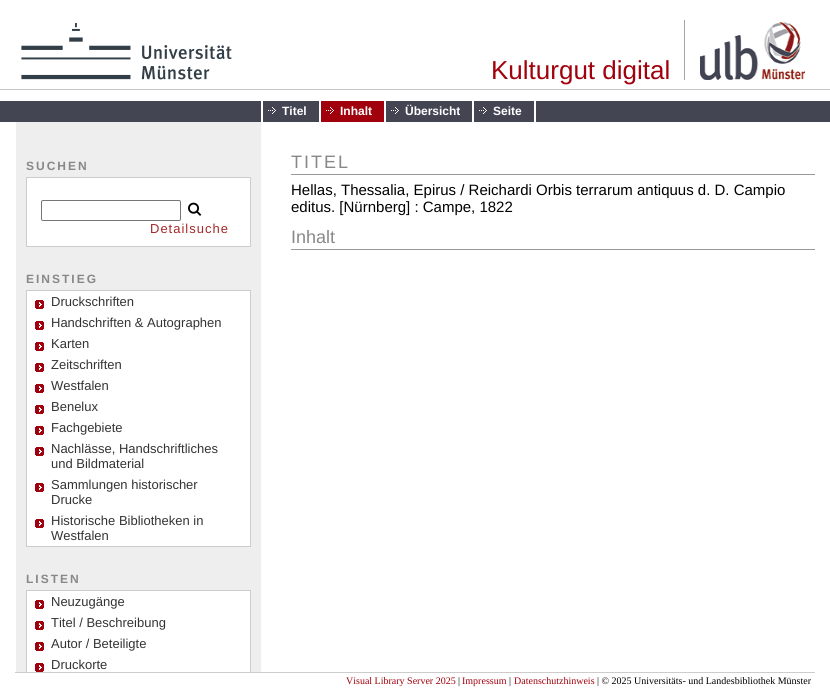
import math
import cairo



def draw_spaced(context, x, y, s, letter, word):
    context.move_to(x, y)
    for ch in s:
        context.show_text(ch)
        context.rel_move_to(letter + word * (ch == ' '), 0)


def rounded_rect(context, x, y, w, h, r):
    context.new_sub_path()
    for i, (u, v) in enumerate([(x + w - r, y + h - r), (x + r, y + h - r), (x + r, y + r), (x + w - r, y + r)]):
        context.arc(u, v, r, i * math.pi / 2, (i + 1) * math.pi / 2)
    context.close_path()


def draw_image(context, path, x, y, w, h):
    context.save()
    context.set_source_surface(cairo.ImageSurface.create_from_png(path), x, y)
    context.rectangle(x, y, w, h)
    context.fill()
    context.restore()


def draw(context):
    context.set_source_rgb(1, 1, 1)
    context.paint()
    draw_image(context, "images/1.png", 21, 23, 211, 57)
    context.set_source_rgb(164 / 255, 165 / 255, 172 / 255)
    context.rectangle(684, 20, 1, 60)
    context.fill()
    draw_image(context, "images/2.png", 700, 22, 105, 58)
    context.set_source_rgb(198 / 255, 198 / 255, 203 / 255)
    context.rectangle(0, 89, 830, 1)
    context.fill()
    context.set_source_rgb(67 / 255, 69 / 255, 83 / 255)
    context.rectangle(0, 101, 830, 21)
    context.fill()
    context.set_source_rgb(1, 1, 1)
    context.rectangle(319, 101, 2, 21)
    context.fill()
    context.rectangle(261, 101, 2, 21)
    context.fill()
    draw_image(context, "images/3.png", 268, 107, 8, 7)
    context.rectangle(384, 101, 2, 21)
    context.fill()
    context.set_source_rgb(160 / 255, 1 / 255, 12 / 255)
    context.rectangle(321, 101, 63, 21)
    context.fill()
    draw_image(context, "images/4.png", 326, 107, 8, 7)
    context.set_source_rgb(1, 1, 1)
    context.rectangle(472, 101, 2, 21)
    context.fill()
    draw_image(context, "images/3.png", 391, 107, 8, 7)
    context.rectangle(534, 101, 2, 21)
    context.fill()
    draw_image(context, "images/3.png", 479, 107, 8, 7)
    context.set_source_rgb(238 / 255, 238 / 255, 238 / 255)
    context.rectangle(16, 122, 245, 550)
    context.fill()
    context.set_source_rgb(1, 1, 1)
    context.rectangle(26.5, 177.5, 224, 69)
    context.fill_preserve()
    context.set_source_rgb(204 / 255, 204 / 255, 204 / 255)
    context.set_line_width(1)
    context.stroke()
    rounded_rect(context, 41.5, 200.5, 139, 20, 1.5)
    context.set_source_rgb(118 / 255, 118 / 255, 118 / 255)
    context.stroke()
    draw_image(context, "images/5.png", 188, 202, 14, 14)
    context.set_source_rgb(1, 1, 1)
    context.rectangle(26.5, 290.5, 224, 256)
    context.fill_preserve()
    context.set_source_rgb(204 / 255, 204 / 255, 204 / 255)
    context.stroke()
    draw_image(context, "images/6.png", 35, 300, 9, 9)
    draw_image(context, "images/6.png", 35, 321, 9, 9)
    draw_image(context, "images/6.png", 35, 342, 9, 9)
    draw_image(context, "images/6.png", 35, 363, 9, 9)
    draw_image(context, "images/6.png", 35, 384, 9, 9)
    draw_image(context, "images/6.png", 35, 405, 9, 9)
    draw_image(context, "images/6.png", 35, 426, 9, 9)
    draw_image(context, "images/6.png", 35, 447, 9, 9)
    draw_image(context, "images/6.png", 35, 483, 9, 9)
    draw_image(context, "images/6.png", 35, 519, 9, 9)
    context.set_source_rgb(1, 1, 1)
    context.rectangle(27, 591, 223, 81)
    context.fill()
    context.rectangle(26.5, 590.5, 224, 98)
    context.set_source_rgb(204 / 255, 204 / 255, 204 / 255)
    context.stroke()
    draw_image(context, "images/6.png", 35, 600, 9, 9)
    draw_image(context, "images/6.png", 35, 621, 9, 9)
    draw_image(context, "images/6.png", 35, 642, 9, 9)
    draw_image(context, "images/6.png", 35, 663, 9, 9)
    context.set_source_rgb(153 / 255, 153 / 255, 153 / 255)
    context.rectangle(291, 174, 524, 1)
    context.fill()
    context.rectangle(291, 249, 524, 1)
    context.fill()
    context.set_source_rgb(1, 1, 1)
    context.rectangle(26, 673, 225, 15)
    context.fill()
    context.set_source_rgb(204 / 255, 204 / 255, 204 / 255)
    context.rectangle(15, 672, 800, 1)
    context.fill()
    context.select_font_face("Liberation Sans")
    context.set_font_size(26)
    context.set_source_rgb(160 / 255, 1 / 255, 12 / 255)
    context.move_to(491, 79)
    context.show_text("Kulturgut digital")
    context.select_font_face("Liberation Sans", cairo.FontSlant.NORMAL, cairo.FontWeight.BOLD)
    context.set_font_size(12)
    context.set_source_rgb(1, 1, 1)
    context.move_to(282, 115)
    context.show_text("Titel")
    context.move_to(340, 115)
    context.show_text("Inhalt")
    context.move_to(405, 115)
    context.show_text("Übersicht")
    context.move_to(493, 115)
    context.show_text("Seite")
    context.set_source_rgb(136 / 255, 136 / 255, 136 / 255)
    draw_spaced(context, 26, 170, "SUCHEN", 2, 0)
    context.select_font_face("Liberation Sans")
    context.set_font_size(13)
    context.set_source_rgb(165 / 255, 40 / 255, 40 / 255)
    draw_spaced(context, 150, 233, "Detailsuche", 1, 0)
    context.select_font_face("Liberation Sans", cairo.FontSlant.NORMAL, cairo.FontWeight.BOLD)
    context.set_font_size(12)
    context.set_source_rgb(136 / 255, 136 / 255, 136 / 255)
    draw_spaced(context, 26, 283, "EINSTIEG", 2, 0)
    context.select_font_face("Liberation Sans")
    context.set_font_size(13)
    context.set_source_rgb(51 / 255, 51 / 255, 51 / 255)
    context.move_to(51, 306)
    context.show_text("Druckschriften")
    context.move_to(51, 327)
    context.show_text("Handschriften & Autographen")
    context.move_to(51, 348)
    context.show_text("Karten")
    context.move_to(51, 369)
    context.show_text("Zeitschriften")
    context.move_to(51, 390)
    context.show_text("Westfalen")
    context.move_to(51, 411)
    context.show_text("Benelux")
    context.move_to(51, 432)
    context.show_text("Fachgebiete")
    context.move_to(51, 453)
    context.show_text("Nachlässe, Handschriftliches")
    context.move_to(51, 468)
    context.show_text("und Bildmaterial")
    context.move_to(51, 489)
    context.show_text("Sammlungen historischer")
    context.move_to(51, 504)
    context.show_text("Drucke")
    context.move_to(51, 525)
    context.show_text("Historische Bibliotheken in")
    context.move_to(51, 540)
    context.show_text("Westfalen")
    context.select_font_face("Liberation Sans", cairo.FontSlant.NORMAL, cairo.FontWeight.BOLD)
    context.set_font_size(12)
    context.set_source_rgb(136 / 255, 136 / 255, 136 / 255)
    draw_spaced(context, 26, 583, "LISTEN", 2, 0)
    context.select_font_face("Liberation Sans")
    context.set_font_size(13)
    context.set_source_rgb(51 / 255, 51 / 255, 51 / 255)
    context.move_to(51, 606)
    context.show_text("Neuzugänge")
    context.move_to(51, 627)
    context.show_text("Titel / Beschreibung")
    context.move_to(51, 648)
    context.show_text("Autor / Beteiligte")
    context.move_to(51, 669)
    context.show_text("Druckorte")
    context.set_font_size(18)
    context.set_source_rgb(136 / 255, 136 / 255, 136 / 255)
    draw_spaced(context, 291, 168, "TITEL", 2, 0)
    context.set_font_size(15)
    context.set_source_rgb(0, 0, 0)
    context.move_to(291, 195)
    context.show_text("Hellas, Thessalia, Epirus / Reichardi Orbis terrarum antiquus d. D. Campio")
    context.move_to(291, 212)
    context.show_text("editus. [Nürnberg] : Campe, 1822")
    context.set_font_size(18)
    context.set_source_rgb(136 / 255, 136 / 255, 136 / 255)
    context.move_to(291, 243)
    context.show_text("Inhalt")
    context.select_font_face("Liberation Serif")
    context.set_font_size(10)
    context.set_source_rgb(160 / 255, 1 / 255, 12 / 255)
    context.move_to(346, 684)
    context.show_text("Visual Library Server 2025")
    context.set_source_rgb(0, 0, 0)
    context.move_to(458, 684)
    context.show_text("|")
    context.set_source_rgb(160 / 255, 1 / 255, 12 / 255)
    context.move_to(462, 684)
    context.show_text("Impressum")
    context.set_source_rgb(0, 0, 0)
    context.move_to(509, 684)
    context.show_text("|")
    context.set_source_rgb(160 / 255, 1 / 255, 12 / 255)
    context.move_to(514, 684)
    context.show_text("Datenschutzhinweis")
    context.set_source_rgb(0, 0, 0)
    context.move_to(597, 684)
    context.show_text("| © 2025 Universitäts- und Landesbibliothek Münster")


surface = cairo.ImageSurface(cairo.Format.RGB24, 830, 688)
context = cairo.Context(surface)
options = cairo.FontOptions()
options.set_hint_metrics(cairo.HintMetrics.OFF)
options.set_hint_style(cairo.HintStyle.NONE)
context.set_font_options(options)
context.set_miter_limit(4)
draw(context)
surface.write_to_png("out.png")
